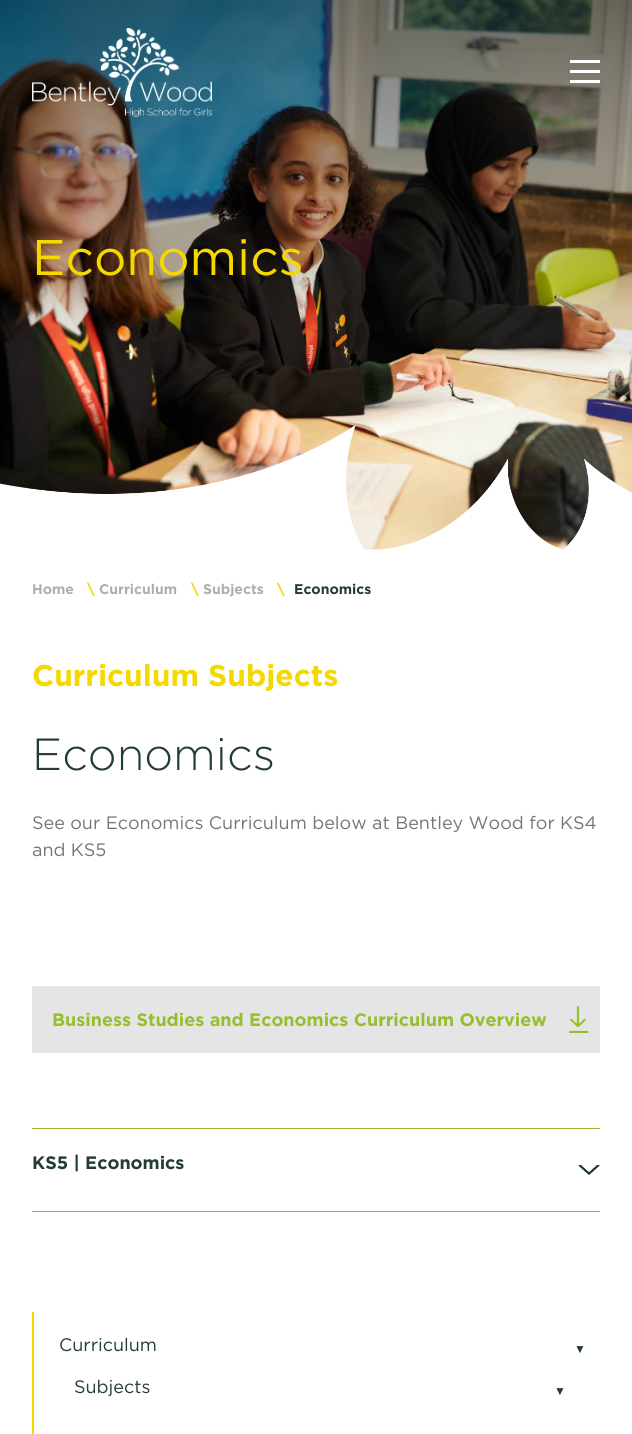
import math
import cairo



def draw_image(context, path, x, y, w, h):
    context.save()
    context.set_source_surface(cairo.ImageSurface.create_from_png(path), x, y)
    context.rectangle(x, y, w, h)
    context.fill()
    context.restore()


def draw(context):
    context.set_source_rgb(1, 1, 1)
    context.paint()
    draw_image(context, "images/2.png", 0, 0, 632, 550)
    draw_image(context, "images/1.png", 32, 28, 180, 89)
    context.set_source_rgb(1, 1, 1)
    context.rectangle(570, 60, 30, 3)
    context.fill()
    context.rectangle(570, 70, 30, 3)
    context.fill()
    context.rectangle(570, 80, 30, 3)
    context.fill()
    draw_image(context, "images/3.png", 0, 424, 632, 126)
    context.set_source_rgb(229 / 255, 229 / 255, 229 / 255)
    context.rectangle(32, 986, 568, 67)
    context.fill()
    draw_image(context, "images/4.png", 569, 1006, 20, 27)
    context.set_source_rgb(150 / 255, 190 / 255, 45 / 255)
    context.rectangle(32, 1128, 568, 1)
    context.fill()
    context.rectangle(32, 1211, 568, 1)
    context.fill()
    draw_image(context, "images/5.png", 578, 1165, 22, 10)
    context.set_source_rgb(244 / 255, 216 / 255, 0)
    context.rectangle(32, 1312, 2, 122)
    context.fill()
    context.select_font_face("Gotham")
    context.set_font_size(50)
    context.move_to(32, 275)
    context.show_text("Economics")
    context.select_font_face("Gotham", cairo.FontSlant.NORMAL, cairo.FontWeight.BOLD)
    context.set_font_size(14)
    context.set_source_rgb(167 / 255, 177 / 255, 173 / 255)
    context.move_to(32, 594)
    context.show_text("Home")
    context.set_source_rgb(244 / 255, 216 / 255, 0)
    context.move_to(87, 594)
    context.show_text("\\")
    context.set_source_rgb(167 / 255, 177 / 255, 173 / 255)
    context.move_to(99, 594)
    context.show_text("Curriculum")
    context.set_source_rgb(244 / 255, 216 / 255, 0)
    context.move_to(191, 594)
    context.show_text("\\")
    context.set_source_rgb(167 / 255, 177 / 255, 173 / 255)
    context.move_to(203, 594)
    context.show_text("Subjects")
    context.set_source_rgb(244 / 255, 216 / 255, 0)
    context.move_to(277, 594)
    context.show_text("\\")
    context.set_source_rgb(36 / 255, 61 / 255, 50 / 255)
    context.move_to(294, 594)
    context.show_text("Economics")
    context.set_font_size(30)
    context.set_source_rgb(244 / 255, 216 / 255, 0)
    context.move_to(32, 686)
    context.show_text("Curriculum Subjects")
    context.select_font_face("Gotham Light")
    context.set_font_size(45)
    context.set_source_rgb(36 / 255, 61 / 255, 50 / 255)
    context.move_to(32, 770)
    context.show_text("Economics")
    context.select_font_face("Gotham")
    context.set_font_size(18)
    context.set_source_rgb(117 / 255, 117 / 255, 117 / 255)
    context.move_to(32, 829)
    context.show_text("See our Economics Curriculum below at Bentley Wood for KS4")
    context.move_to(32, 856)
    context.show_text("and KS5")
    context.select_font_face("Gotham", cairo.FontSlant.NORMAL, cairo.FontWeight.BOLD)
    context.set_source_rgb(150 / 255, 190 / 255, 45 / 255)
    context.move_to(52, 1026)
    context.show_text("Business Studies and Economics Curriculum Overview")
    context.set_source_rgb(36 / 255, 61 / 255, 50 / 255)
    context.move_to(32, 1169)
    context.show_text("KS5 | Economics")
    context.select_font_face("Gotham")
    context.move_to(59, 1351)
    context.show_text("Curriculum")
    context.select_font_face("Liberation Sans")
    context.set_font_size(12)
    context.move_to(574, 1353)
    context.show_text("▼")
    context.select_font_face("Gotham")
    context.set_font_size(18)
    context.move_to(74, 1393)
    context.show_text("Subjects")
    context.select_font_face("Liberation Sans")
    context.set_font_size(12)
    context.move_to(554, 1395)
    context.show_text("▼")


surface = cairo.ImageSurface(cairo.Format.RGB24, 632, 1434)
context = cairo.Context(surface)
options = cairo.FontOptions()
options.set_hint_metrics(cairo.HintMetrics.OFF)
options.set_hint_style(cairo.HintStyle.NONE)
context.set_font_options(options)
context.set_miter_limit(4)
draw(context)
surface.write_to_png("out.png")
